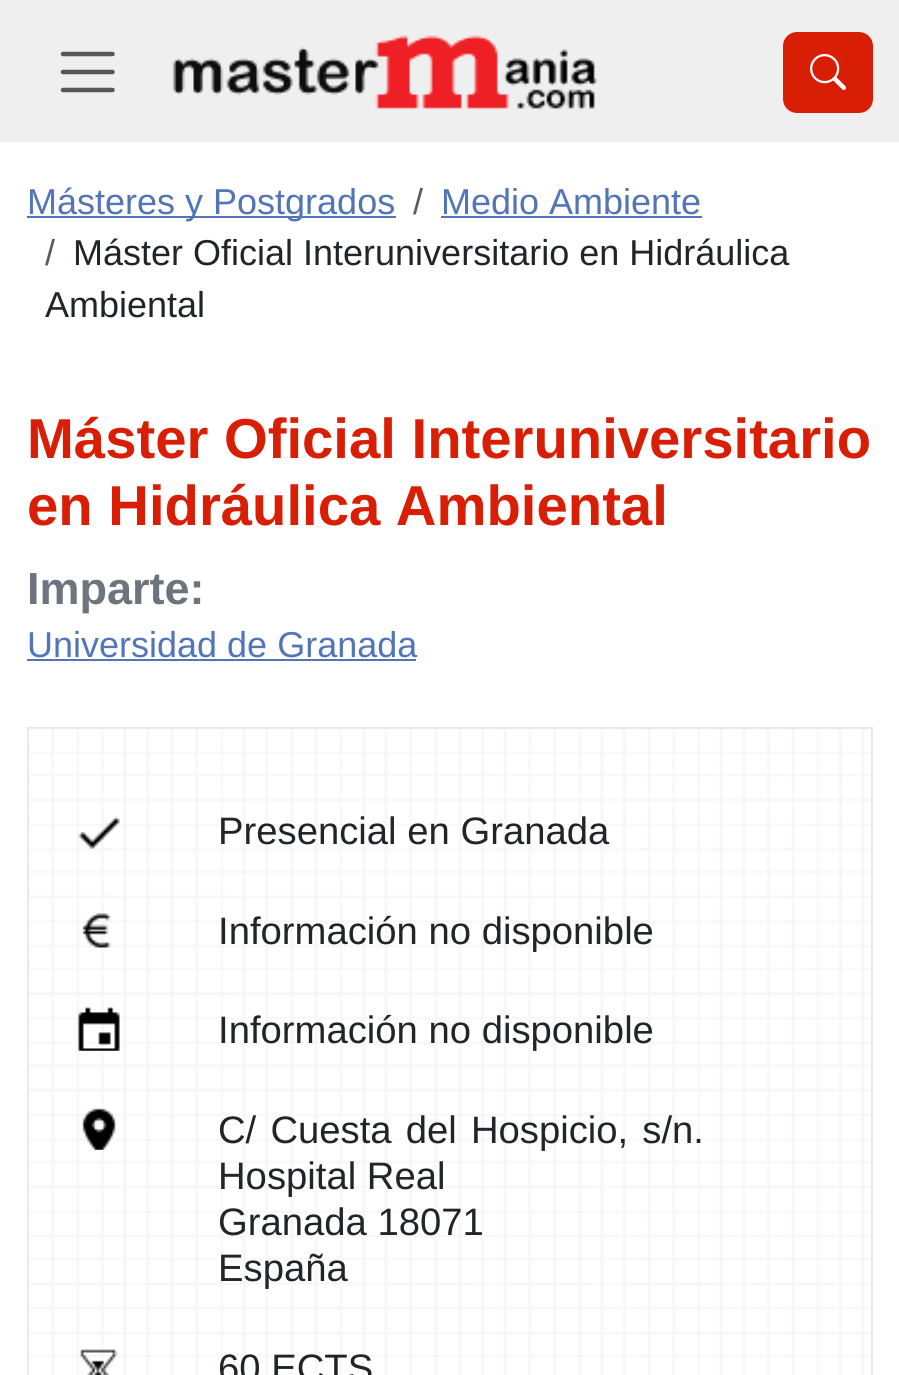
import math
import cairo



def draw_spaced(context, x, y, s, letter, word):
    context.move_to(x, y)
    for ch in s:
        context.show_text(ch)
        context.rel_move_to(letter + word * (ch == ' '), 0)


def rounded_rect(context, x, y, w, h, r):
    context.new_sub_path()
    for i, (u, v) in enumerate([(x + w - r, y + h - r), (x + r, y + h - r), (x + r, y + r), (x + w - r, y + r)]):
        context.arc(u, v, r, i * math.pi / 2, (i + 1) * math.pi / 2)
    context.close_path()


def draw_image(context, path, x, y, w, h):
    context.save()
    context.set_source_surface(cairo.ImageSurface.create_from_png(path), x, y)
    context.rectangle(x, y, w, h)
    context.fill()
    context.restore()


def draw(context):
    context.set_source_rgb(1, 1, 1)
    context.paint()
    context.set_source_rgb(239 / 255, 239 / 255, 239 / 255)
    context.rectangle(0, 0, 899, 142)
    context.fill()
    context.new_path()
    context.move_to(63, 54)
    context.line_to(112.5, 54)
    context.move_to(63, 72)
    context.line_to(112.5, 72)
    context.move_to(63, 90)
    context.line_to(112.5, 90)
    context.set_source_rgb(85 / 255, 88 / 255, 91 / 255)
    context.set_line_width(4.5)
    context.set_line_cap(cairo.LineCap.ROUND)
    context.stroke()
    draw_image(context, "images/1.png", 172, 35, 425, 74)
    context.set_source_rgb(216 / 255, 30 / 255, 5 / 255)
    rounded_rect(context, 783, 32, 90, 81, 14)
    context.fill()
    draw_image(context, "images/2.png", 810, 54, 36, 36)
    context.set_source_rgb(82 / 255, 117 / 255, 183 / 255)
    context.rectangle(27, 216, 369, 2)
    context.fill()
    context.rectangle(441, 216, 261, 2)
    context.fill()
    context.rectangle(27, 659, 389, 2)
    context.fill()
    draw_image(context, "images/3.png", 29, 729, 842, 646)
    context.rectangle(28, 728, 844, 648)
    context.set_source_rgb(234 / 255, 234 / 255, 234 / 255)
    context.set_line_width(2)
    context.set_line_cap(cairo.LineCap.BUTT)
    context.stroke()
    draw_image(context, "images/4.png", 78, 816, 42, 33)
    draw_image(context, "images/5.png", 82, 913, 29, 35)
    draw_image(context, "images/6.png", 78, 1007, 42, 44)
    draw_image(context, "images/7.png", 82, 1108, 34, 42)
    draw_image(context, "images/8.png", 80, 1349, 38, 26)
    context.select_font_face("Liberation Sans")
    context.set_font_size(36)
    context.set_source_rgb(82 / 255, 117 / 255, 183 / 255)
    context.move_to(27, 214)
    context.show_text("Másteres y Postgrados")
    context.set_source_rgb(89 / 255, 92 / 255, 95 / 255)
    context.move_to(413, 214)
    context.show_text("/")
    context.set_source_rgb(82 / 255, 117 / 255, 183 / 255)
    context.move_to(441, 214)
    context.show_text("Medio Ambiente")
    context.set_source_rgb(89 / 255, 92 / 255, 95 / 255)
    context.move_to(45, 265)
    context.show_text("/")
    context.set_source_rgb(33 / 255, 37 / 255, 41 / 255)
    context.move_to(73, 265)
    context.show_text("Máster Oficial Interuniversitario en Hidráulica")
    context.move_to(45, 317)
    context.show_text("Ambiental")
    context.select_font_face("Liberation Sans", cairo.FontSlant.NORMAL, cairo.FontWeight.BOLD)
    context.set_font_size(56.25)
    context.set_source_rgb(216 / 255, 30 / 255, 5 / 255)
    context.move_to(27, 458)
    context.show_text("Máster Oficial Interuniversitario")
    context.move_to(27, 525)
    context.show_text("en Hidráulica Ambiental")
    context.set_font_size(45)
    context.set_source_rgb(108 / 255, 117 / 255, 125 / 255)
    context.move_to(27, 604)
    context.show_text("Imparte:")
    context.select_font_face("Liberation Sans")
    context.set_font_size(36)
    context.set_source_rgb(82 / 255, 117 / 255, 183 / 255)
    context.move_to(27, 657)
    context.show_text("Universidad de Granada")
    context.set_font_size(38.25)
    context.set_source_rgb(33 / 255, 37 / 255, 41 / 255)
    context.move_to(218, 844)
    context.show_text("Presencial en Granada")
    context.move_to(218, 944)
    context.show_text("Información no disponible")
    context.move_to(218, 1043)
    context.show_text("Información no disponible")
    draw_spaced(context, 218, 1143, "C/ Cuesta del Hospicio, s/n.", 0, 3.5)
    context.move_to(218, 1189)
    context.show_text("Hospital Real")
    context.move_to(218, 1235)
    context.show_text("Granada 18071")
    context.move_to(218, 1281)
    context.show_text("España")
    context.move_to(218, 1381)
    context.show_text("60 ECTS")


surface = cairo.ImageSurface(cairo.Format.RGB24, 899, 1375)
context = cairo.Context(surface)
options = cairo.FontOptions()
options.set_hint_metrics(cairo.HintMetrics.OFF)
options.set_hint_style(cairo.HintStyle.NONE)
context.set_font_options(options)
context.set_miter_limit(4)
draw(context)
surface.write_to_png("out.png")
